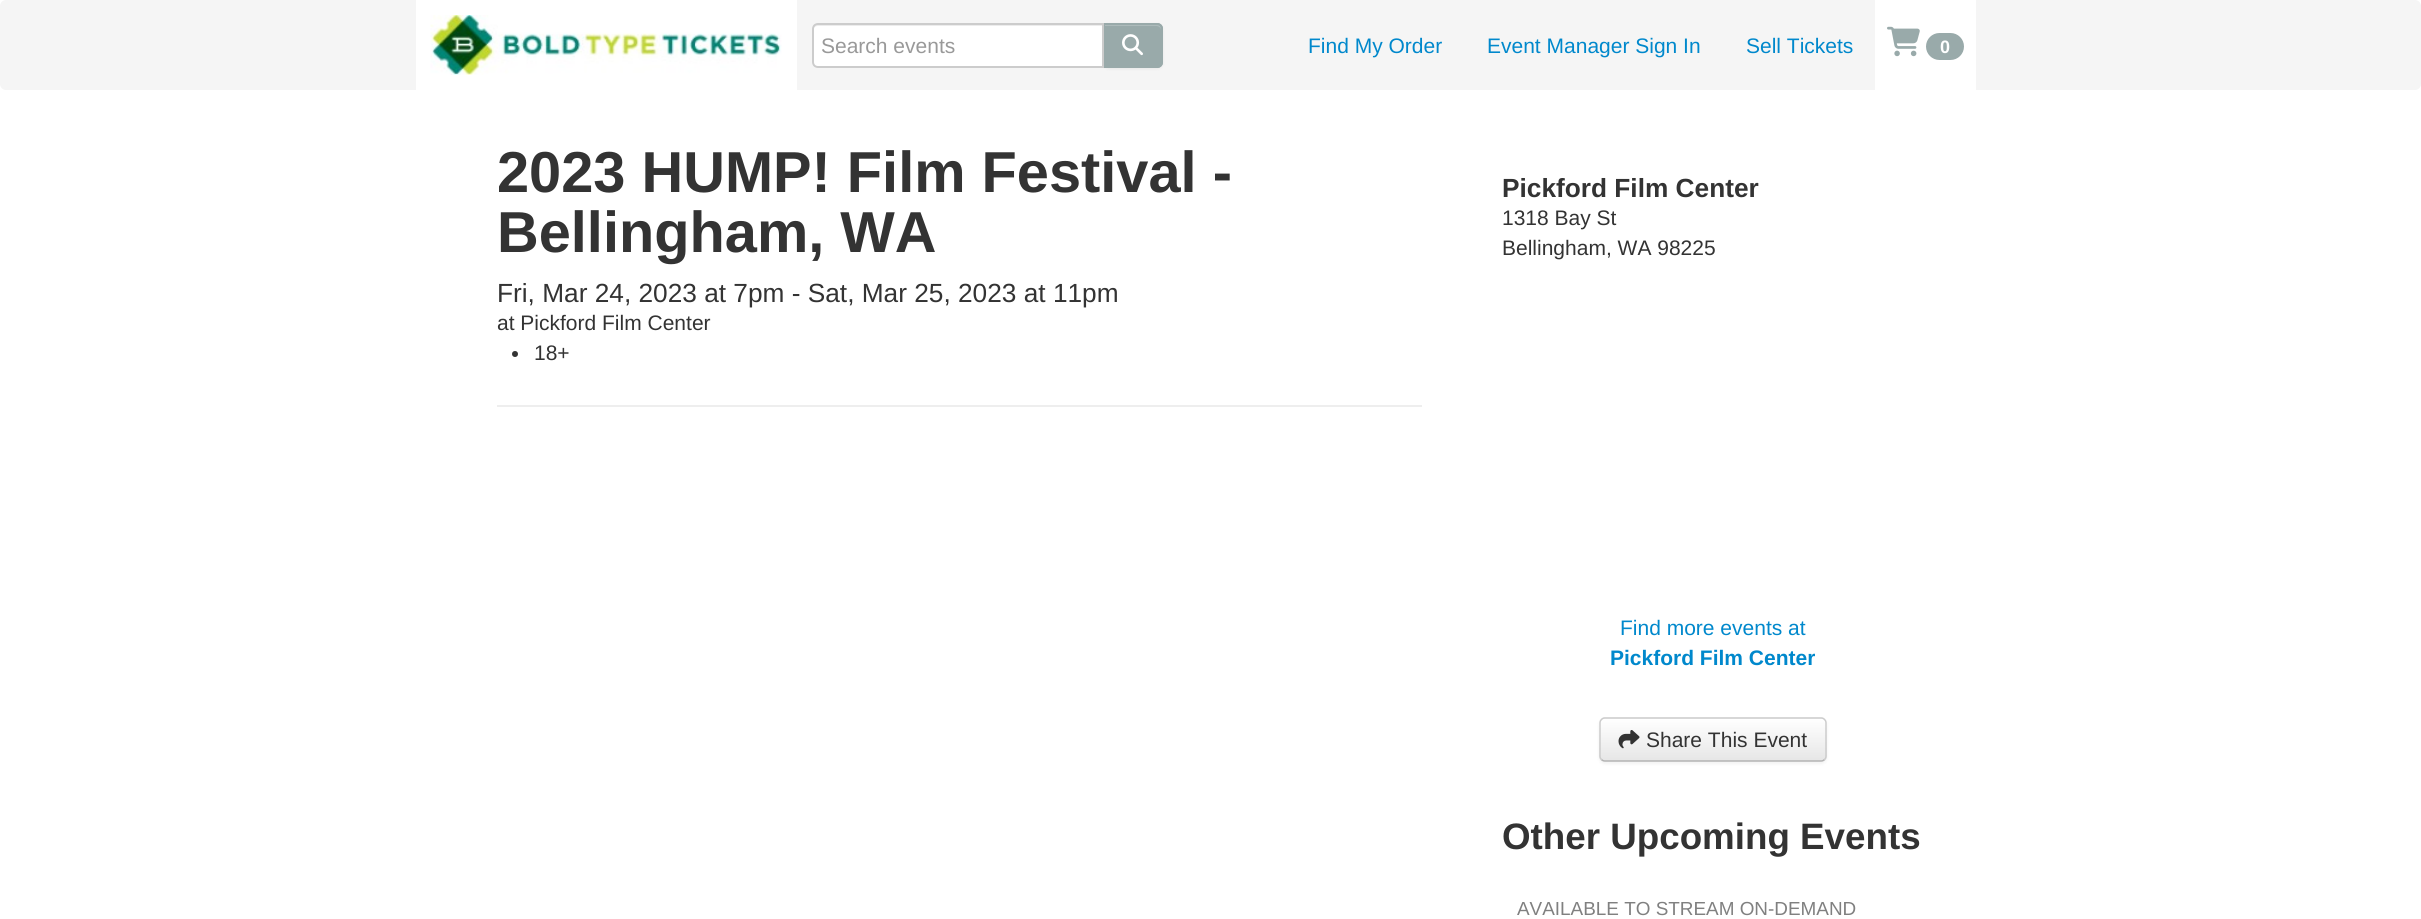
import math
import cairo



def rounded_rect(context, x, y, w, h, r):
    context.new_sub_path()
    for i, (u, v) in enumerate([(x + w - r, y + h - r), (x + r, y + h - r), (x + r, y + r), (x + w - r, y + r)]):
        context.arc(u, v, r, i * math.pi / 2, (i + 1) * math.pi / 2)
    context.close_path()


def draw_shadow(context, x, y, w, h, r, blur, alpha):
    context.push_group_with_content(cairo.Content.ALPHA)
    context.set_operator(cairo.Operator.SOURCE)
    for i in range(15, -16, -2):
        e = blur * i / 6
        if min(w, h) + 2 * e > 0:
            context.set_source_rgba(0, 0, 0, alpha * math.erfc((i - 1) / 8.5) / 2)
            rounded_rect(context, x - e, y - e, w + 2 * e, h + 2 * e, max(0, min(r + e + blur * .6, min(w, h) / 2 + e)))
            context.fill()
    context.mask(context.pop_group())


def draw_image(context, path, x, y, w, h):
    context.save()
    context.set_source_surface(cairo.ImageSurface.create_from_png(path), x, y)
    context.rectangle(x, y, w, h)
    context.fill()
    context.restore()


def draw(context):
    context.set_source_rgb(1, 1, 1)
    context.paint()
    context.set_source_rgb(245 / 255, 245 / 255, 245 / 255)
    rounded_rect(context, 0, 0, 2421, 90, 6)
    context.fill()
    context.set_source_rgb(1, 1, 1)
    context.rectangle(416, 0, 381, 90)
    context.fill()
    draw_image(context, "images/1.png", 430, 15, 352, 60)
    context.set_source_rgb(0, 0, 0)
    draw_shadow(context, 1103, 24, 60, 45, 6, 1.5, 0.05)
    context.set_source_rgb(153 / 255, 170 / 255, 170 / 255)
    context.new_path()
    context.move_to(1103, 23)
    context.line_to(1157, 23)
    context.curve_to(1160.5, 23, 1163, 25.5, 1163, 29)
    context.line_to(1163, 62)
    context.curve_to(1163, 65.5, 1160.5, 68, 1157, 68)
    context.line_to(1103, 68)
    context.close_path()
    context.fill()
    context.set_source_rgb(173 / 255, 187 / 255, 187 / 255)
    context.new_path()
    context.move_to(1104, 26)
    context.line_to(1156, 26)
    context.curve_to(1159, 26, 1161, 28, 1161, 30)
    context.line_to(1161, 29)
    context.curve_to(1161, 26, 1159, 24, 1156, 24)
    context.line_to(1104, 24)
    context.close_path()
    context.fill()
    context.new_path()
    context.move_to(1104, 24)
    context.line_to(1157, 24)
    context.curve_to(1160, 24, 1162, 26, 1162, 29)
    context.line_to(1162, 62)
    context.curve_to(1162, 65, 1160, 67, 1157, 67)
    context.line_to(1104, 67)
    context.close_path()
    context.set_source_rgb(153 / 255, 170 / 255, 170 / 255)
    context.stroke()
    context.set_source_rgb(1, 1, 1)
    context.new_path()
    context.move_to(818, 23)
    context.line_to(1104, 23)
    context.line_to(1104, 68)
    context.line_to(818, 68)
    context.curve_to(814.5, 68, 812, 65.5, 812, 62)
    context.line_to(812, 29)
    context.curve_to(812, 25.5, 814.5, 23, 818, 23)
    context.close_path()
    context.fill()
    context.set_source_rgb(236 / 255, 236 / 255, 236 / 255)
    context.new_path()
    context.move_to(818, 26)
    context.line_to(1102, 26)
    context.line_to(1102, 66)
    context.line_to(1103, 66)
    context.line_to(1103, 24)
    context.line_to(818, 24)
    context.curve_to(815, 24, 813, 26, 813, 29)
    context.line_to(813, 30)
    context.curve_to(813, 28, 815, 26, 818, 26)
    context.close_path()
    context.fill()
    context.new_path()
    context.move_to(818, 24)
    context.line_to(1103, 24)
    context.line_to(1103, 67)
    context.line_to(818, 67)
    context.curve_to(815, 67, 813, 65, 813, 62)
    context.line_to(813, 29)
    context.curve_to(813, 26, 815, 24, 818, 24)
    context.close_path()
    context.set_source_rgb(204 / 255, 204 / 255, 204 / 255)
    context.stroke()
    draw_image(context, "images/2.png", 1122, 34, 21, 22)
    context.set_source_rgb(1, 1, 1)
    context.rectangle(1875, 0, 101, 90)
    context.fill()
    draw_image(context, "images/3.png", 1887, 26, 33, 31)
    context.set_source_rgb(153 / 255, 170 / 255, 170 / 255)
    rounded_rect(context, 1926, 33, 38, 27, 13.5)
    context.fill()
    context.set_source_rgb(238 / 255, 238 / 255, 238 / 255)
    context.rectangle(497, 405, 925, 2)
    context.fill()
    context.set_source_rgb(51 / 255, 51 / 255, 51 / 255)
    context.arc(515, 354, 3, 0, 2 * math.pi)
    context.fill()
    context.set_source_rgb(0, 0, 0)
    draw_shadow(context, 1599, 719, 228, 45, 6, 1.5, 0.05)
    context.set_source_rgb(245 / 255, 245 / 255, 245 / 255)
    rounded_rect(context, 1599, 717, 228, 45, 6)
    context.fill()
    context.save()
    rounded_rect(context, 1599, 717, 228, 45, 6)
    context.clip()
    gradient = cairo.LinearGradient(1713, 719, 1713, 761)
    gradient.add_color_stop_rgba(0, 1, 1, 1, 1)
    gradient.add_color_stop_rgba(1, 230 / 255, 230 / 255, 230 / 255, 1)
    context.set_source(gradient)
    context.rectangle(1599, 719, 228, 42)
    context.fill()
    context.restore()
    context.new_path()
    context.move_to(1824.5, 759.5)
    context.curve_to(1823.5, 760.5, 1822.5, 761, 1821, 761)
    context.line_to(1605, 761)
    context.curve_to(1603.5, 761, 1602.5, 760.5, 1601.5, 759.5)
    context.set_source_rgb(179 / 255, 179 / 255, 179 / 255)
    context.set_line_width(1.5)
    context.stroke()
    context.new_path()
    context.move_to(1601.5, 759.5)
    context.curve_to(1600.5, 758.5, 1600, 757.5, 1600, 756)
    context.line_to(1600, 723)
    context.curve_to(1600, 721.5, 1600.5, 720.5, 1601.5, 719.5)
    context.curve_to(1602.5, 718.5, 1603.5, 718, 1605, 718)
    context.line_to(1821, 718)
    context.curve_to(1822.5, 718, 1823.5, 718.5, 1824.5, 719.5)
    context.curve_to(1825.5, 720.5, 1826, 721.5, 1826, 723)
    context.line_to(1826, 756)
    context.curve_to(1826, 757.5, 1825.5, 758.5, 1824.5, 759.5)
    context.set_source_rgb(204 / 255, 204 / 255, 204 / 255)
    context.stroke()
    draw_image(context, "images/4.png", 1618, 730, 22, 19)
    context.select_font_face("Liberation Sans")
    context.set_font_size(21)
    context.set_source_rgb(153 / 255, 153 / 255, 153 / 255)
    context.move_to(821, 53)
    context.show_text("Search events")
    context.set_source_rgb(0, 136 / 255, 204 / 255)
    context.move_to(1308, 53)
    context.show_text("Find My Order")
    context.move_to(1487, 53)
    context.show_text("Event Manager Sign In")
    context.move_to(1746, 53)
    context.show_text("Sell Tickets")
    context.select_font_face("Liberation Sans", cairo.FontSlant.NORMAL, cairo.FontWeight.BOLD)
    context.set_font_size(18)
    context.set_source_rgb(1, 1, 1)
    context.move_to(1940, 53)
    context.show_text("0")
    context.set_font_size(57.75)
    context.set_source_rgb(51 / 255, 51 / 255, 51 / 255)
    context.move_to(497, 192)
    context.show_text("2023 HUMP! Film Festival -")
    context.move_to(497, 252)
    context.show_text("Bellingham, WA")
    context.select_font_face("Liberation Sans")
    context.set_font_size(26.25)
    context.move_to(497, 302)
    context.show_text("Fri, Mar 24, 2023 at 7pm - Sat, Mar 25, 2023 at 11pm")
    context.set_font_size(21)
    context.move_to(497, 330)
    context.show_text("at Pickford Film Center")
    context.move_to(534, 360)
    context.show_text("18+")
    context.select_font_face("Liberation Sans", cairo.FontSlant.NORMAL, cairo.FontWeight.BOLD)
    context.set_font_size(26.25)
    context.move_to(1502, 197)
    context.show_text("Pickford Film Center")
    context.select_font_face("Liberation Sans")
    context.set_font_size(21)
    context.move_to(1502, 225)
    context.show_text("1318 Bay St")
    context.move_to(1502, 255)
    context.show_text("Bellingham, WA 98225")
    context.set_source_rgb(0, 136 / 255, 204 / 255)
    context.move_to(1620, 635)
    context.show_text("Find more events at")
    context.select_font_face("Liberation Sans", cairo.FontSlant.NORMAL, cairo.FontWeight.BOLD)
    context.move_to(1610, 665)
    context.show_text("Pickford Film Center")
    context.select_font_face("Liberation Sans")
    context.set_source_rgb(51 / 255, 51 / 255, 51 / 255)
    context.move_to(1646, 747)
    context.show_text("Share This Event")
    context.select_font_face("Liberation Sans", cairo.FontSlant.NORMAL, cairo.FontWeight.BOLD)
    context.set_font_size(36.75)
    context.move_to(1502, 849)
    context.show_text("Other Upcoming Events")
    context.select_font_face("Liberation Sans")
    context.set_font_size(18.9)
    context.set_source_rgb(128 / 255, 128 / 255, 128 / 255)
    context.move_to(1517, 915)
    context.show_text("AVAILABLE TO STREAM ON-DEMAND")


surface = cairo.ImageSurface(cairo.Format.RGB24, 2421, 919)
context = cairo.Context(surface)
options = cairo.FontOptions()
options.set_hint_metrics(cairo.HintMetrics.OFF)
options.set_hint_style(cairo.HintStyle.NONE)
context.set_font_options(options)
context.set_miter_limit(4)
draw(context)
surface.write_to_png("out.png")
